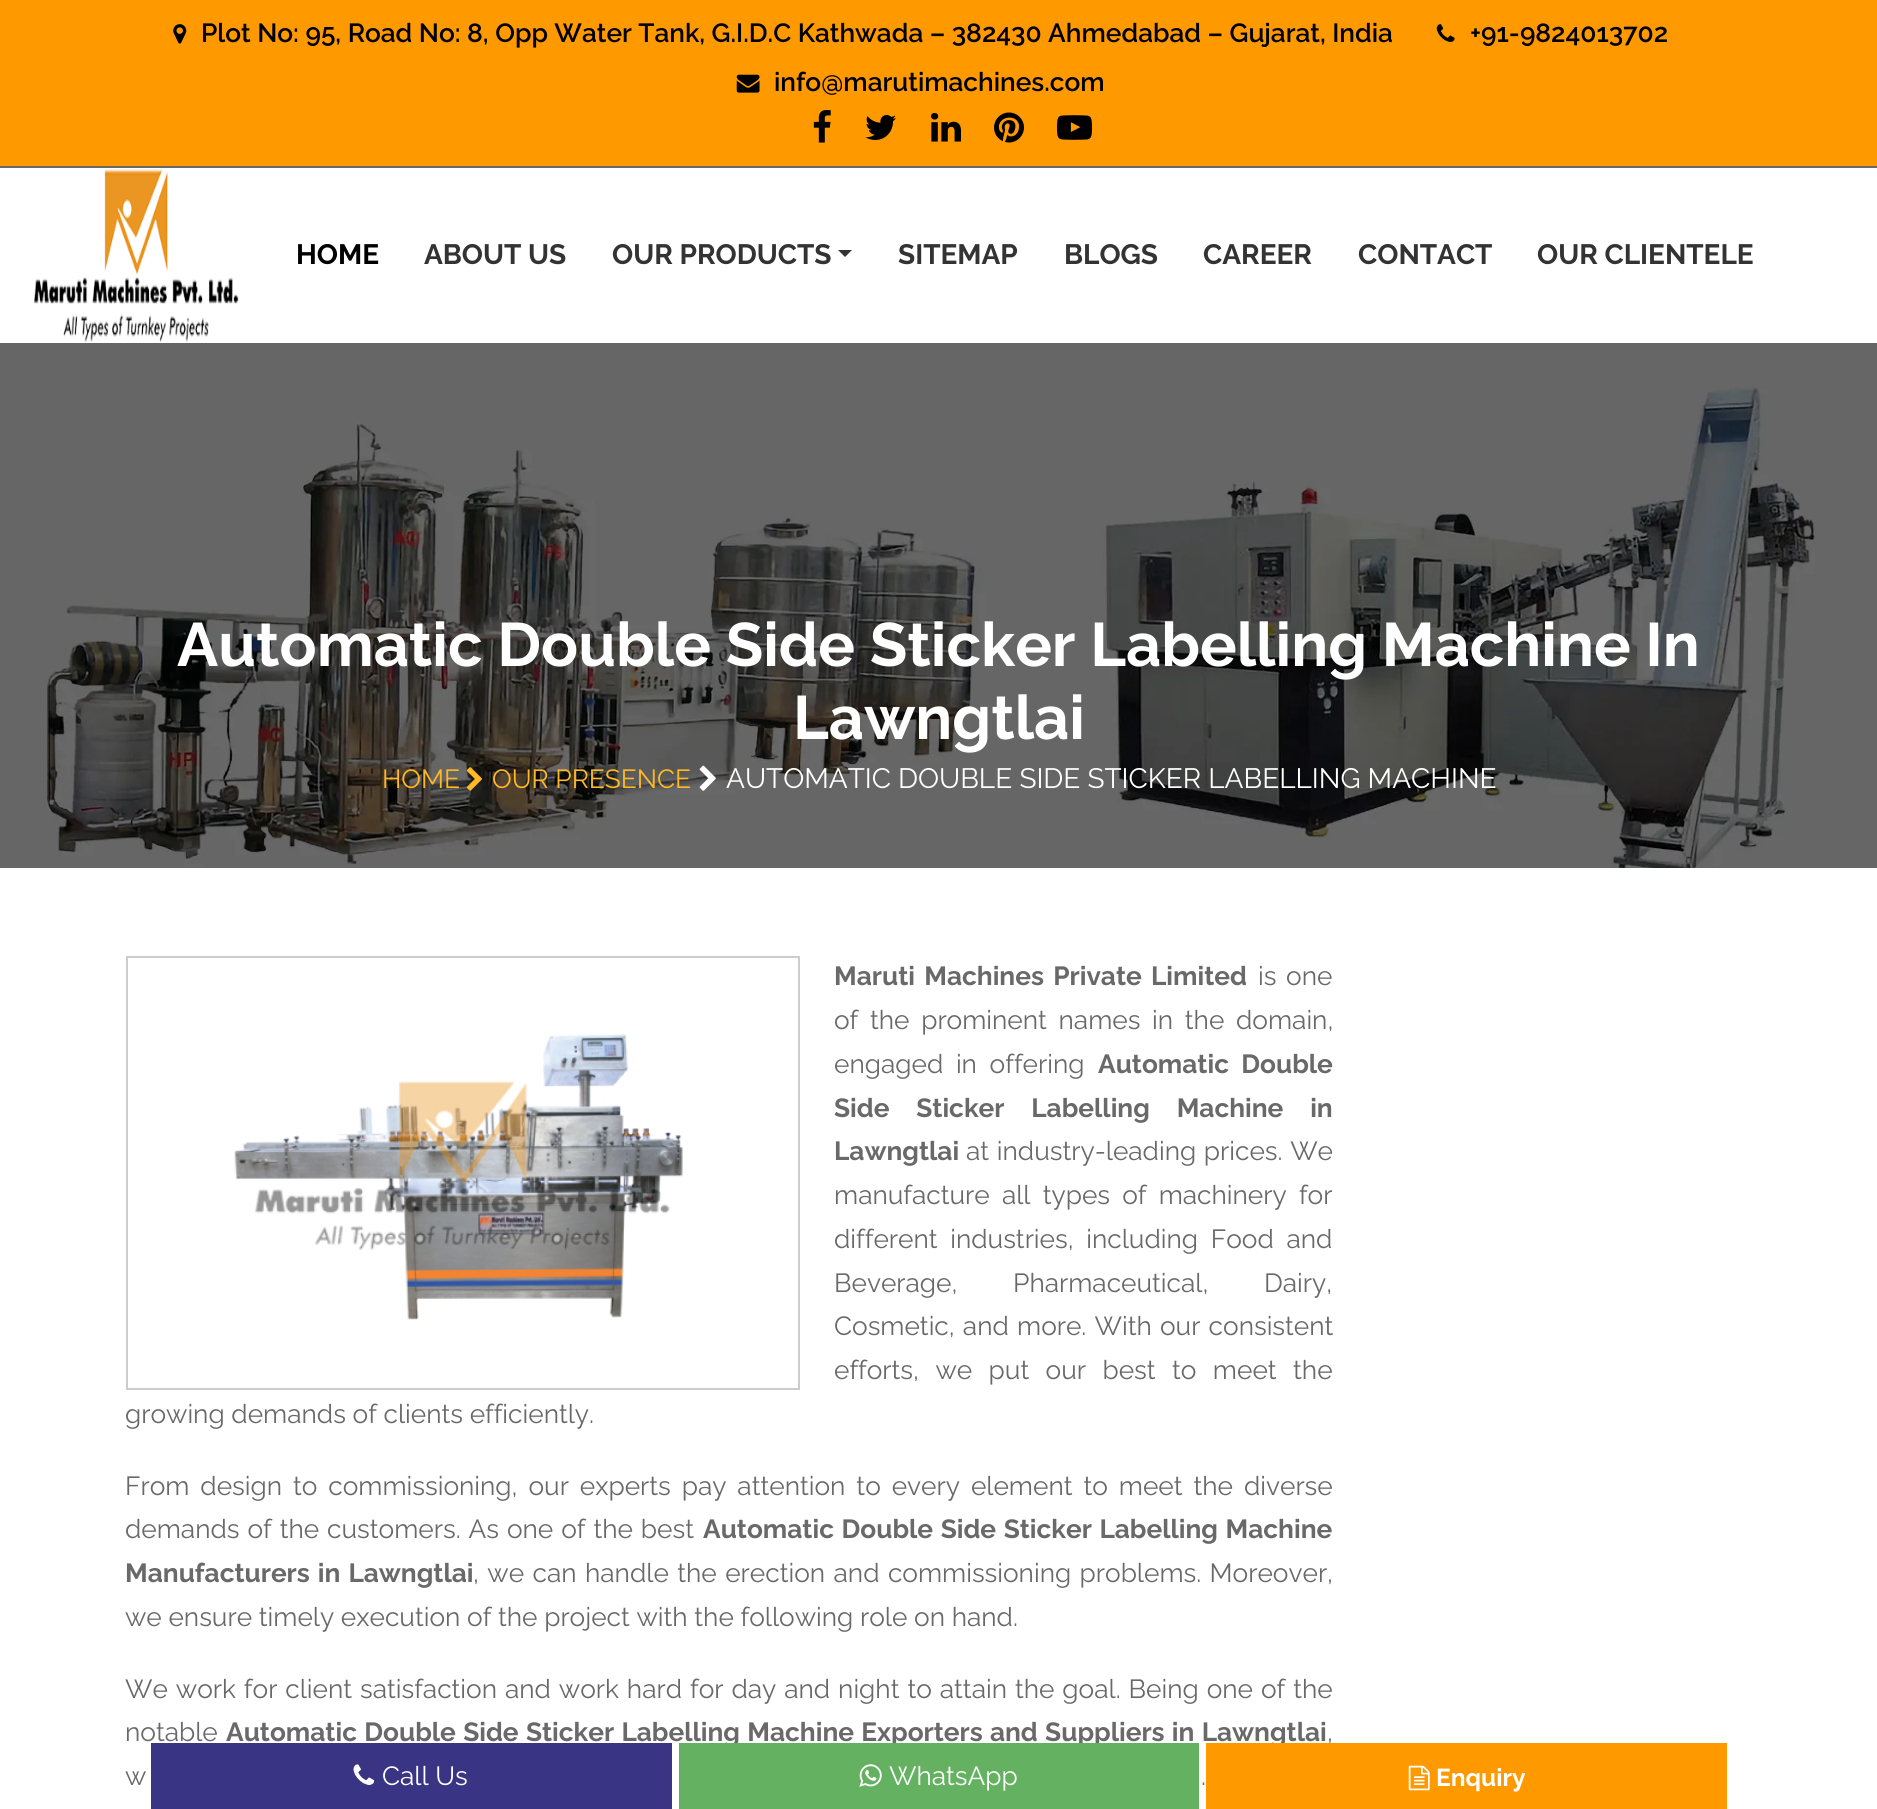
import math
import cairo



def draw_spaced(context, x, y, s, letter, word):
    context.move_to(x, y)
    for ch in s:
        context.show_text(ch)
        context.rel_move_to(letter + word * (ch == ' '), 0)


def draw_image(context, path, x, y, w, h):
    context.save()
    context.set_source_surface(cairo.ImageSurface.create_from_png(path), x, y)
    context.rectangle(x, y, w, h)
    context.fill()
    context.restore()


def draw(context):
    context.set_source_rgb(1, 1, 1)
    context.paint()
    context.set_source_rgb(254 / 255, 153 / 255, 0)
    context.rectangle(0, 0, 1877, 166)
    context.fill()
    context.set_source_rgb(105 / 255, 105 / 255, 105 / 255)
    context.rectangle(0, 166, 1877, 2)
    context.fill()
    draw_image(context, "images/1.png", 173, 24, 14, 20)
    draw_image(context, "images/2.png", 1436, 24, 19, 18)
    draw_image(context, "images/3.png", 736, 74, 24, 19)
    draw_image(context, "images/4.png", 813, 110, 18, 33)
    draw_image(context, "images/5.png", 865, 115, 31, 25)
    draw_image(context, "images/6.png", 931, 112, 30, 30)
    draw_image(context, "images/7.png", 994, 112, 30, 31)
    draw_image(context, "images/8.png", 1057, 115, 35, 25)
    draw_image(context, "images/9.png", 34, 169, 205, 173)
    context.set_source_rgb(51 / 255, 51 / 255, 51 / 255)
    context.new_path()
    context.move_to(838, 250)
    context.line_to(852, 250)
    context.line_to(845, 257)
    context.close_path()
    context.fill()
    draw_image(context, "images/10.png", 0, 343, 1877, 525)
    draw_image(context, "images/11.png", 466, 767, 16, 24)
    draw_image(context, "images/12.png", 699, 765, 17, 26)
    context.rectangle(127, 957, 672, 432)
    context.set_source_rgb(204 / 255, 204 / 255, 204 / 255)
    context.stroke()
    draw_image(context, "images/13.png", 234, 1034, 449, 286)
    context.select_font_face("Raleway SemiBold")
    context.set_font_size(26.25)
    context.set_source_rgb(0, 0, 0)
    context.move_to(201, 42)
    context.show_text("Plot No: 95, Road No: 8, Opp Water Tank, G.I.D.C Kathwada – 382430 Ahmedabad – Gujarat, India")
    context.move_to(1470, 42)
    context.show_text("+91-9824013702")
    context.move_to(774, 91)
    context.show_text("info@marutimachines.com")
    context.select_font_face("Raleway", cairo.FontSlant.NORMAL, cairo.FontWeight.BOLD)
    context.set_font_size(28)
    context.move_to(296, 264)
    context.show_text("HOME")
    context.set_source_rgb(51 / 255, 51 / 255, 51 / 255)
    context.move_to(424, 264)
    context.show_text("ABOUT US")
    context.move_to(612, 264)
    context.show_text("OUR PRODUCTS")
    context.move_to(898, 264)
    context.show_text("SITEMAP")
    context.move_to(1064, 264)
    context.show_text("BLOGS")
    context.move_to(1203, 264)
    context.show_text("CAREER")
    context.move_to(1358, 264)
    context.show_text("CONTACT")
    context.move_to(1537, 264)
    context.show_text("OUR CLIENTELE")
    context.set_font_size(61.25)
    context.set_source_rgb(1, 1, 1)
    context.move_to(177, 666)
    context.show_text("Automatic Double Side Sticker Labelling Machine In")
    context.move_to(793, 739)
    context.show_text("Lawngtlai")
    context.select_font_face("Raleway")
    context.set_font_size(26.25)
    context.set_source_rgb(1, 185 / 255, 35 / 255)
    context.move_to(382, 788)
    context.show_text("HOME")
    context.move_to(492, 788)
    context.show_text("OUR PRESENCE")
    context.set_font_size(28)
    context.set_source_rgb(1, 1, 1)
    context.move_to(726, 788)
    context.show_text("AUTOMATIC DOUBLE SIDE STICKER LABELLING MACHINE")
    context.select_font_face("Raleway", cairo.FontSlant.NORMAL, cairo.FontWeight.BOLD)
    context.set_font_size(26.25)
    context.set_source_rgb(105 / 255, 105 / 255, 105 / 255)
    draw_spaced(context, 834, 985, "Maruti Machines Private Limited", 0, 3)
    context.select_font_face("Raleway")
    draw_spaced(context, 1258, 985, "is one", 0, 3)
    draw_spaced(context, 834, 1029, "of the prominent names in the domain,", 0, 5)
    draw_spaced(context, 834, 1073, "engaged in offering", 0, 6)
    context.select_font_face("Raleway", cairo.FontSlant.NORMAL, cairo.FontWeight.BOLD)
    draw_spaced(context, 1098, 1073, "Automatic Double", 0, 6)
    draw_spaced(context, 834, 1117, "Side Sticker Labelling Machine in", 0, 20.5)
    context.move_to(834, 1160)
    context.show_text("Lawngtlai")
    context.select_font_face("Raleway")
    draw_spaced(context, 966, 1160, "at industry-leading prices. We", 0, 1)
    draw_spaced(context, 834, 1204, "manufacture all types of machinery for", 0, 5.5)
    draw_spaced(context, 834, 1248, "different industries, including Food and", 0, 6)
    draw_spaced(context, 834, 1292, "Beverage, Pharmaceutical, Dairy,", 0, 49)
    draw_spaced(context, 834, 1335, "Cosmetic, and more. With our consistent", 0, 1.5)
    draw_spaced(context, 834, 1379, "efforts, we put our best to meet the", 0, 9.75)
    context.move_to(125, 1423)
    context.show_text("growing demands of clients efficiently.")
    draw_spaced(context, 125, 1495, "From design to commissioning, our experts pay attention to every element to meet the diverse", 0, 4.25)
    draw_spaced(context, 125, 1538, "demands of the customers. As one of the best", 0, 1.25)
    context.select_font_face("Raleway", cairo.FontSlant.NORMAL, cairo.FontWeight.BOLD)
    draw_spaced(context, 703, 1538, "Automatic Double Side Sticker Labelling Machine", 0, 1.25)
    draw_spaced(context, 125, 1582, "Manufacturers in Lawngtlai", 0, 1.75)
    context.select_font_face("Raleway")
    draw_spaced(context, 473, 1582, ", we can handle the erection and commissioning problems. Moreover,", 0, 1.75)
    context.move_to(125, 1626)
    context.show_text("we ensure timely execution of the project with the following role on hand.")
    draw_spaced(context, 125, 1698, "We work for client satisfaction and work hard for day and night to attain the goal. Being one of the", 0, 1.25)
    context.move_to(125, 1741)
    context.show_text("notable")
    context.select_font_face("Raleway", cairo.FontSlant.NORMAL, cairo.FontWeight.BOLD)
    draw_spaced(context, 226, 1741, "Automatic Double Side Sticker Labelling Machine Exporters and Suppliers in Lawngtlai", 0, 1)
    context.select_font_face("Raleway")
    context.move_to(1327, 1741)
    context.show_text(",")
    draw_spaced(context, 125, 1785, "w", 0, 2)
    draw_spaced(context, 1201, 1785, ".", 0, 2)
    context.set_source_rgb(58 / 255, 52 / 255, 132 / 255)
    context.rectangle(151, 1743, 521, 66)
    context.fill()
    draw_image(context, "images/14.png", 353, 1764, 22, 21)
    context.set_source_rgb(1, 1, 1)
    context.move_to(382, 1785)
    context.show_text("Call Us")
    context.set_source_rgb(100 / 255, 177 / 255, 97 / 255)
    context.rectangle(679, 1743, 520, 66)
    context.fill()
    draw_image(context, "images/15.png", 859, 1764, 23, 23)
    context.set_source_rgb(1, 1, 1)
    context.move_to(889, 1785)
    context.show_text("WhatsApp")
    context.set_source_rgb(254 / 255, 153 / 255, 0)
    context.rectangle(1206, 1743, 521, 66)
    context.fill()
    draw_image(context, "images/16.png", 1408, 1765, 22, 26)
    context.select_font_face("Raleway", cairo.FontSlant.NORMAL, cairo.FontWeight.BOLD)
    context.set_font_size(24.5)
    context.set_source_rgb(1, 1, 1)
    context.move_to(1436, 1786)
    context.show_text("Enquiry")


surface = cairo.ImageSurface(cairo.Format.RGB24, 1877, 1809)
context = cairo.Context(surface)
options = cairo.FontOptions()
options.set_hint_metrics(cairo.HintMetrics.OFF)
options.set_hint_style(cairo.HintStyle.NONE)
context.set_font_options(options)
context.set_miter_limit(4)
draw(context)
surface.write_to_png("out.png")
